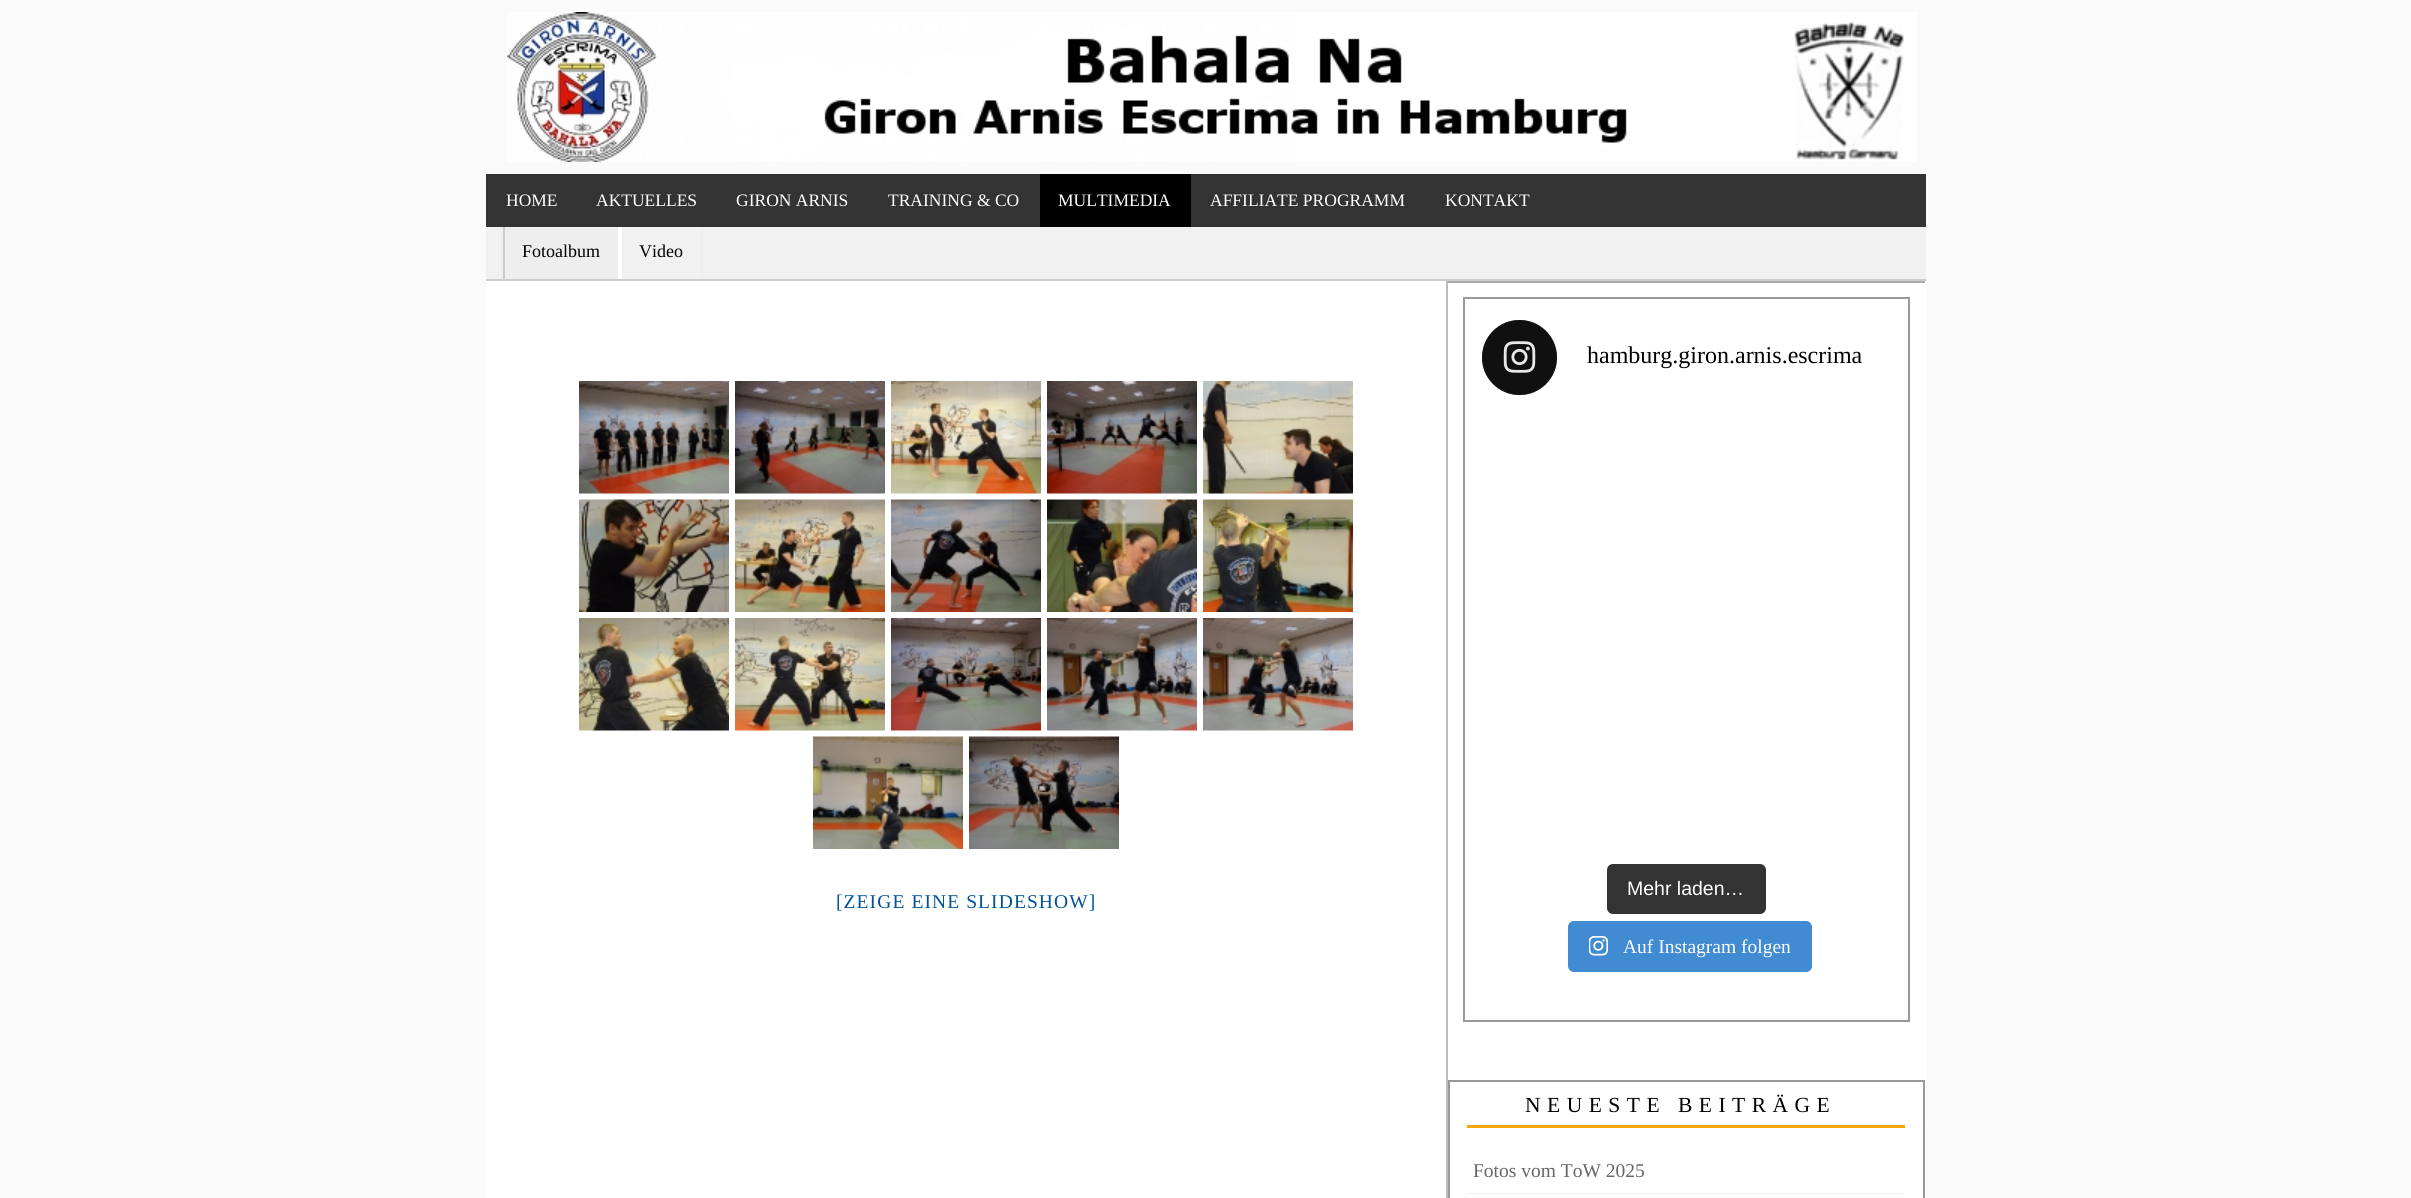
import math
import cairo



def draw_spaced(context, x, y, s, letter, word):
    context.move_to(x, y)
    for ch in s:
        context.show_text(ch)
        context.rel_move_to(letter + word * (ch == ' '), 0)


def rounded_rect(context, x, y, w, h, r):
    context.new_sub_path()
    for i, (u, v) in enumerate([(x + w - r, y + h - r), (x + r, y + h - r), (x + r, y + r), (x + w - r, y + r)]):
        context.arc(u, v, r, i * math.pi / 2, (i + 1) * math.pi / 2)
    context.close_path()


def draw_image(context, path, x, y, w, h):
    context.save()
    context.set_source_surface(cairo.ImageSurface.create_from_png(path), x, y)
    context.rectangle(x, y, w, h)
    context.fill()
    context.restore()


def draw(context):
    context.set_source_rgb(250 / 255, 250 / 255, 250 / 255)
    context.paint()
    draw_image(context, "images/1.png", 507, 12, 1410, 150)
    context.set_source_rgb(1, 1, 1)
    context.rectangle(486, 281, 1440, 917)
    context.fill()
    context.set_source_rgb(51 / 255, 51 / 255, 51 / 255)
    context.rectangle(486, 174, 1440, 53)
    context.fill()
    context.set_source_rgb(0, 0, 0)
    context.rectangle(1040, 174, 151, 53)
    context.fill()
    context.set_source_rgb(241 / 255, 241 / 255, 241 / 255)
    context.rectangle(486, 227, 1440, 52)
    context.fill()
    context.set_source_rgb(204 / 255, 204 / 255, 204 / 255)
    context.rectangle(486, 279, 1440, 2)
    context.fill()
    context.set_source_rgb(238 / 255, 238 / 255, 238 / 255)
    context.rectangle(501, 227, 2, 52)
    context.fill()
    context.rectangle(505, 227, 113, 52)
    context.fill()
    context.set_source_rgb(1, 1, 1)
    context.rectangle(618, 227, 4, 52)
    context.fill()
    context.set_source_rgb(204 / 255, 204 / 255, 204 / 255)
    context.rectangle(503, 227, 2, 52)
    context.fill()
    context.set_source_rgb(238 / 255, 238 / 255, 238 / 255)
    context.rectangle(701, 227, 2, 52)
    context.fill()
    draw_image(context, "images/2.png", 579, 381, 150, 113)
    draw_image(context, "images/3.png", 735, 381, 150, 113)
    draw_image(context, "images/4.png", 891, 381, 150, 113)
    draw_image(context, "images/5.png", 1047, 381, 150, 113)
    draw_image(context, "images/6.png", 1203, 381, 150, 113)
    draw_image(context, "images/7.png", 579, 499, 150, 113)
    draw_image(context, "images/8.png", 735, 499, 150, 113)
    draw_image(context, "images/9.png", 891, 499, 150, 113)
    draw_image(context, "images/10.png", 1047, 499, 150, 113)
    draw_image(context, "images/11.png", 1203, 499, 150, 113)
    draw_image(context, "images/12.png", 579, 618, 150, 113)
    draw_image(context, "images/13.png", 735, 618, 150, 113)
    draw_image(context, "images/14.png", 891, 618, 150, 113)
    draw_image(context, "images/15.png", 1047, 618, 150, 113)
    draw_image(context, "images/16.png", 1203, 618, 150, 113)
    draw_image(context, "images/17.png", 813, 736, 150, 113)
    draw_image(context, "images/18.png", 969, 736, 150, 113)
    context.set_source_rgb(187 / 255, 187 / 255, 187 / 255)
    context.rectangle(1446, 281, 2, 917)
    context.fill()
    context.set_source_rgb(170 / 255, 170 / 255, 170 / 255)
    context.rectangle(1448, 281, 477, 2)
    context.fill()
    context.rectangle(1464, 298, 445, 723)
    context.set_source_rgb(153 / 255, 153 / 255, 153 / 255)
    context.stroke()
    context.set_source_rgb(51 / 255, 51 / 255, 51 / 255)
    context.arc(1519.5, 357.5, 37.5, 0, 2 * math.pi)
    context.fill()
    context.set_source_rgba(0, 0, 0, 0.68)
    context.arc(1519.5, 357.5, 37.5, 0, 2 * math.pi)
    context.fill()
    draw_image(context, "images/19.png", 1503, 341, 33, 32)
    context.set_source_rgb(51 / 255, 51 / 255, 51 / 255)
    rounded_rect(context, 1607, 864, 159, 50, 6)
    context.fill()
    context.set_source_rgb(64 / 255, 139 / 255, 209 / 255)
    rounded_rect(context, 1568, 921, 244, 51, 6)
    context.fill()
    draw_image(context, "images/20.png", 1589, 936, 19, 20)
    context.rectangle(1449, 1081, 475, 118)
    context.set_source_rgb(153 / 255, 153 / 255, 153 / 255)
    context.stroke()
    context.set_source_rgb(1, 165 / 255, 0)
    context.rectangle(1467, 1125, 438, 3)
    context.fill()
    context.set_source_rgb(238 / 255, 238 / 255, 238 / 255)
    context.rectangle(1467, 1193, 438, 1)
    context.fill()
    context.select_font_face("Liberation Serif")
    context.set_font_size(17.5)
    context.set_source_rgb(1, 1, 1)
    context.move_to(506, 206)
    context.show_text("HOME")
    context.move_to(596, 206)
    context.show_text("AKTUELLES")
    context.move_to(736, 206)
    context.show_text("GIRON ARNIS")
    context.move_to(888, 206)
    context.show_text("TRAINING & CO")
    context.move_to(1058, 206)
    context.show_text("MULTIMEDIA")
    context.move_to(1210, 206)
    context.show_text("AFFILIATE PROGRAMM")
    context.move_to(1445, 206)
    context.show_text("KONTAKT")
    context.set_font_size(18)
    context.set_source_rgb(0, 0, 0)
    context.move_to(522, 257)
    context.show_text("Fotoalbum")
    context.move_to(639, 257)
    context.show_text("Video")
    context.set_font_size(19.5)
    context.set_source_rgb(0, 82 / 255, 153 / 255)
    draw_spaced(context, 836, 908, "[ZEIGE EINE SLIDESHOW]", 1.1, 0)
    context.set_font_size(24)
    context.set_source_rgb(0, 0, 0)
    context.move_to(1587, 363)
    context.show_text("hamburg.giron.arnis.escrima")
    context.select_font_face("Liberation Sans")
    context.set_font_size(19.5)
    context.set_source_rgb(1, 1, 1)
    context.move_to(1627, 895)
    context.show_text("Mehr laden…")
    context.select_font_face("Liberation Serif")
    context.move_to(1623, 953)
    context.show_text("Auf Instagram folgen")
    context.set_font_size(21.5)
    context.set_source_rgb(0, 0, 0)
    draw_spaced(context, 1525, 1112, "NEUESTE BEITRÄGE", 6.5, 0)
    context.set_font_size(19.5)
    context.set_source_rgb(102 / 255, 102 / 255, 102 / 255)
    context.move_to(1473, 1177)
    context.show_text("Fotos vom ToW 2025")


surface = cairo.ImageSurface(cairo.Format.RGB24, 2411, 1198)
context = cairo.Context(surface)
options = cairo.FontOptions()
options.set_hint_metrics(cairo.HintMetrics.OFF)
options.set_hint_style(cairo.HintStyle.NONE)
context.set_font_options(options)
context.set_miter_limit(4)
draw(context)
surface.write_to_png("out.png")
